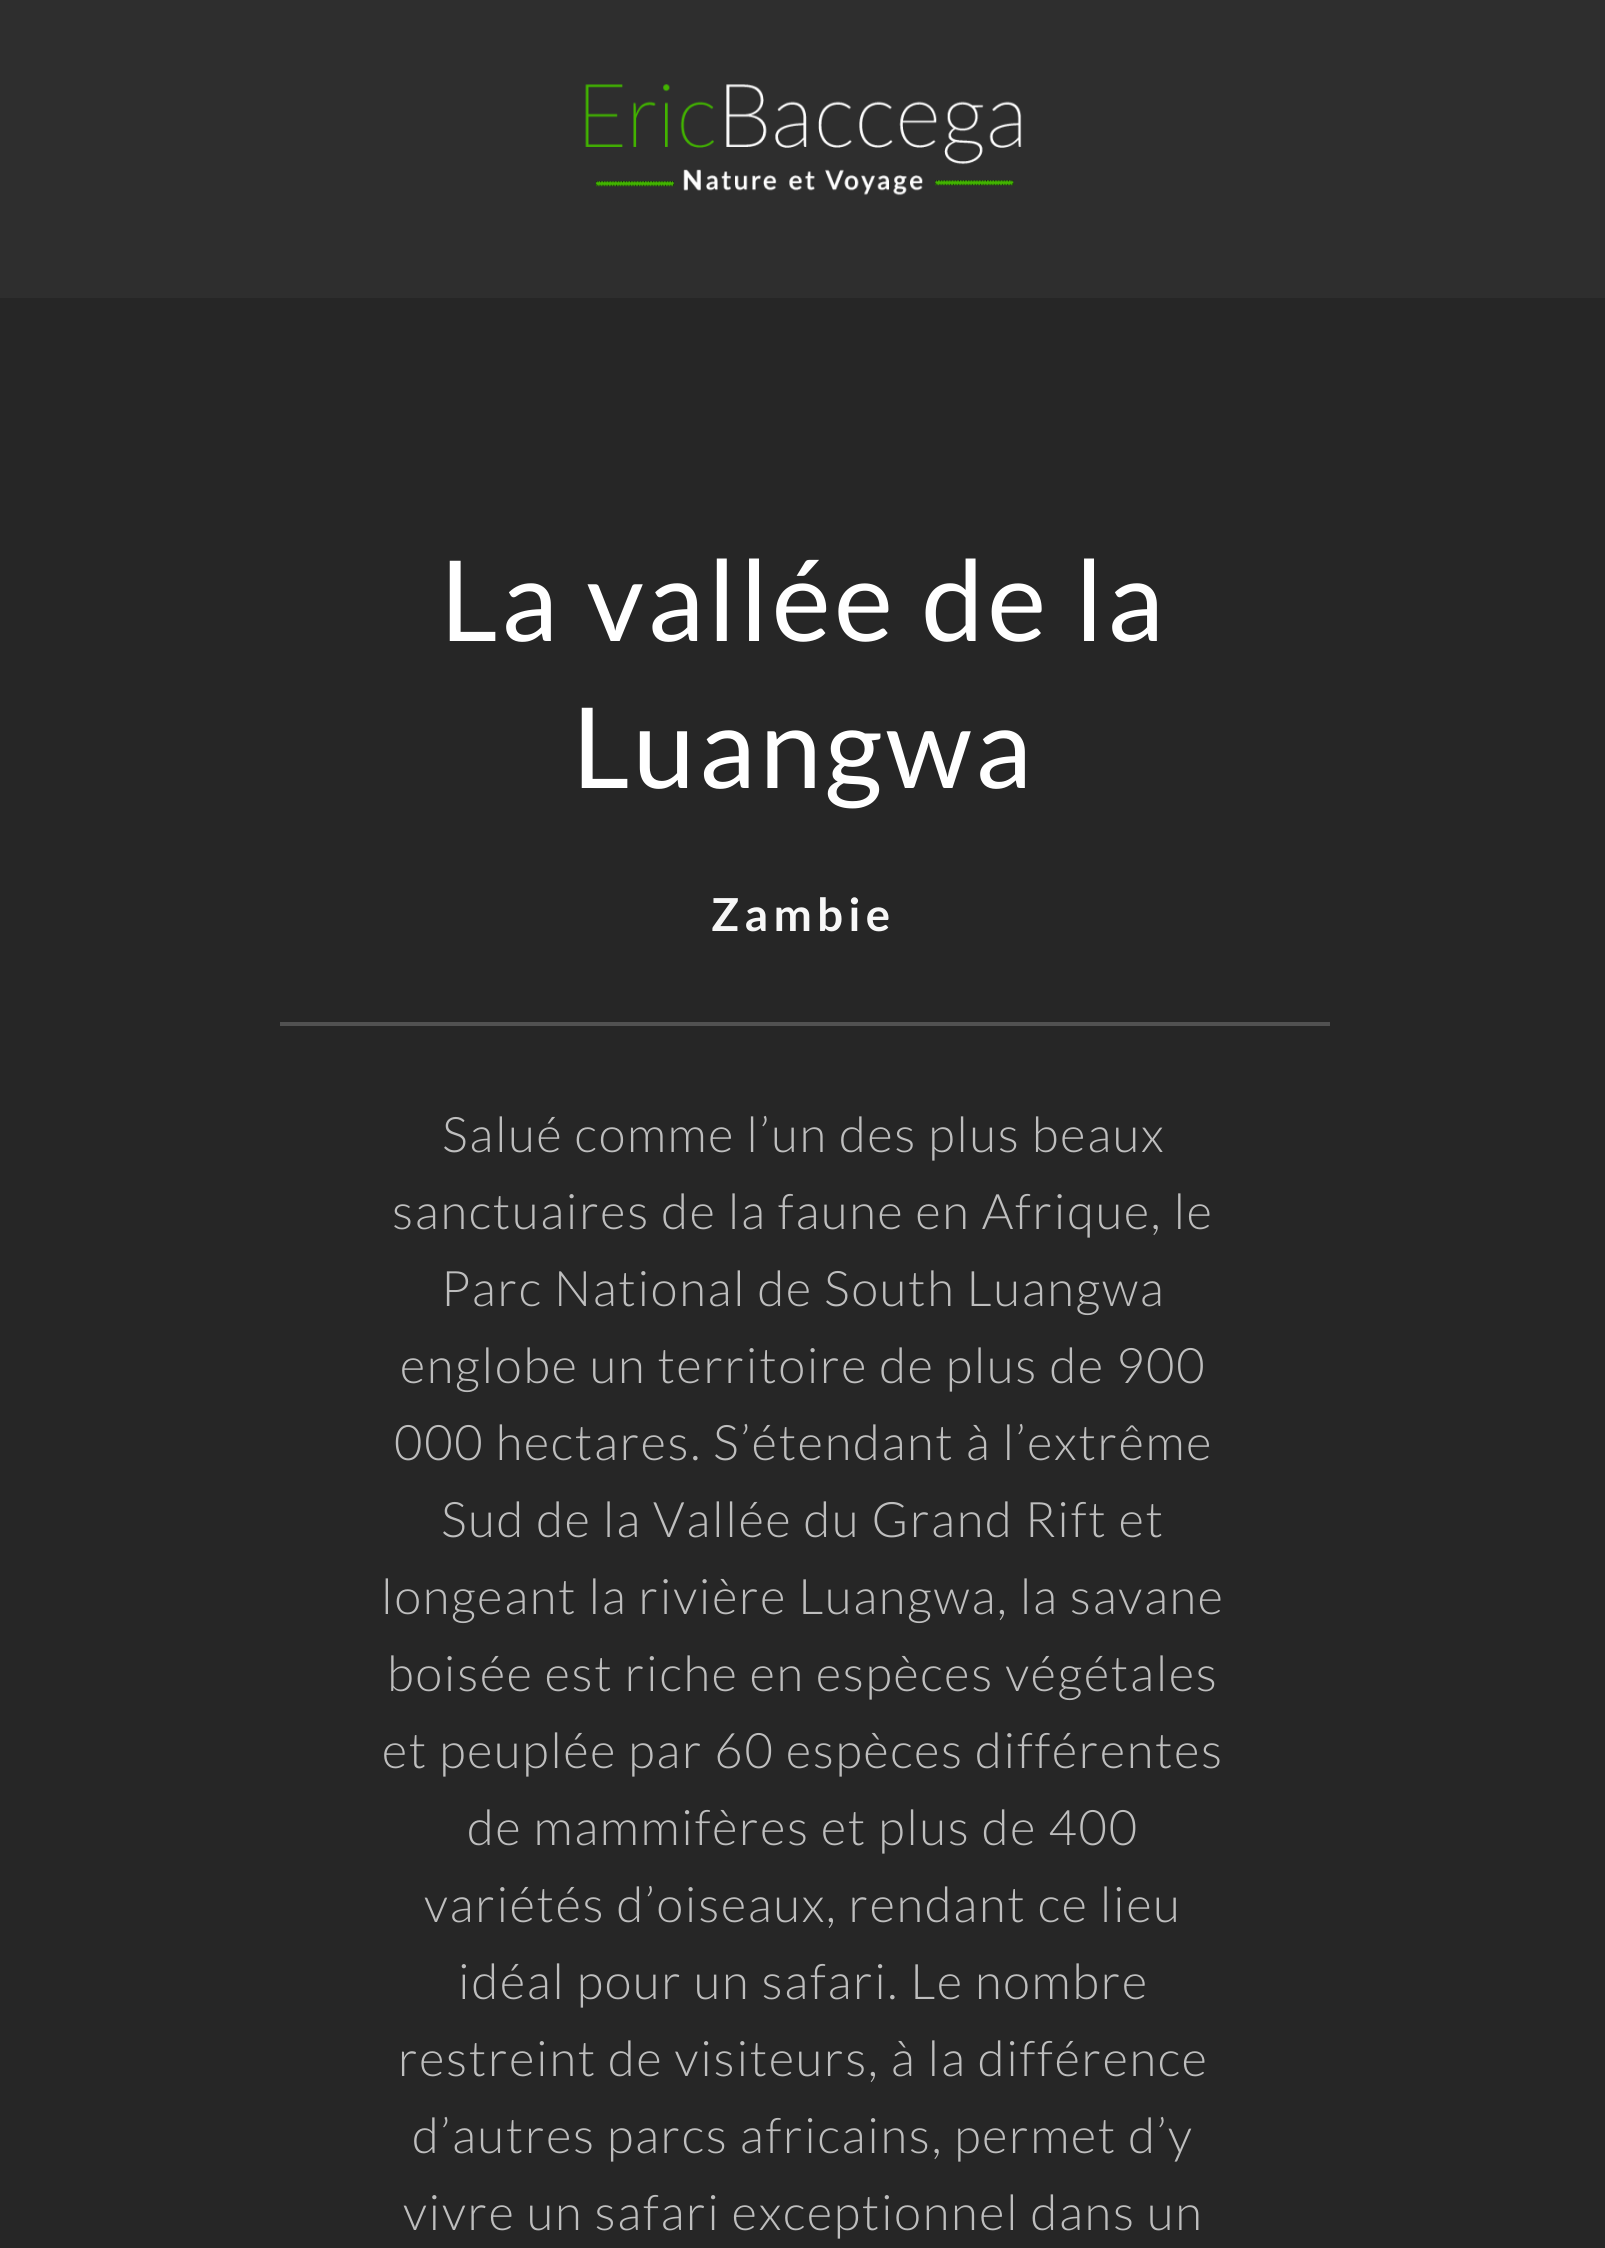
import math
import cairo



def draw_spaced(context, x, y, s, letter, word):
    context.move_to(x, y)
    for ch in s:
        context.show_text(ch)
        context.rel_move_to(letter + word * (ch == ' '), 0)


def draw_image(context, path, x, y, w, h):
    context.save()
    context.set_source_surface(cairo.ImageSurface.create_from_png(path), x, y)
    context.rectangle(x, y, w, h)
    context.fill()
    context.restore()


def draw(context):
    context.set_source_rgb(38 / 255, 38 / 255, 38 / 255)
    context.paint()
    context.set_source_rgb(46 / 255, 46 / 255, 46 / 255)
    context.rectangle(0, 0, 1605, 298)
    context.fill()
    draw_image(context, "images/1.png", 585, 84, 437, 112)
    context.set_source_rgb(81 / 255, 81 / 255, 81 / 255)
    context.rectangle(280, 1022, 1050, 4)
    context.fill()
    context.select_font_face("Lato")
    context.set_font_size(112)
    context.set_source_rgb(1, 1, 1)
    draw_spaced(context, 440, 641, "La vallée de la", 3.5, 0)
    draw_spaced(context, 572, 788, "Luangwa", 3.5, 0)
    context.select_font_face("Lato", cairo.FontSlant.NORMAL, cairo.FontWeight.BOLD)
    context.set_font_size(45.5)
    context.set_source_rgb(247 / 255, 247 / 255, 247 / 255)
    draw_spaced(context, 711, 931, "Zambie", 5.25, 0)
    context.select_font_face("Lato Light")
    context.set_font_size(49)
    context.set_source_rgb(190 / 255, 190 / 255, 190 / 255)
    draw_spaced(context, 442, 1152, "Salué comme l’un des plus beaux", 1.75, 0)
    draw_spaced(context, 392, 1229, "sanctuaires de la faune en Afrique, le", 1.75, 0)
    draw_spaced(context, 441, 1306, "Parc National de South Luangwa", 1.75, 0)
    draw_spaced(context, 400, 1383, "englobe un territoire de plus de 900", 1.75, 0)
    draw_spaced(context, 394, 1460, "000 hectares. S’étendant à l’extrême", 1.75, 0)
    draw_spaced(context, 441, 1537, "Sud de la Vallée du Grand Rift et", 1.75, 0)
    draw_spaced(context, 381, 1614, "longeant la rivière Luangwa, la savane", 1.75, 0)
    draw_spaced(context, 387, 1691, "boisée est riche en espèces végétales", 1.75, 0)
    draw_spaced(context, 382, 1768, "et peuplée par 60 espèces différentes", 1.75, 0)
    draw_spaced(context, 467, 1845, "de mammifères et plus de 400", 1.75, 0)
    draw_spaced(context, 424, 1922, "variétés d’oiseaux, rendant ce lieu", 1.75, 0)
    draw_spaced(context, 458, 1999, "idéal pour un safari. Le nombre", 1.75, 0)
    draw_spaced(context, 398, 2076, "restreint de visiteurs, à la différence", 1.75, 0)
    draw_spaced(context, 412, 2153, "d’autres parcs africains, permet d’y", 1.75, 0)
    draw_spaced(context, 403, 2230, "vivre un safari exceptionnel dans un", 1.75, 0)


surface = cairo.ImageSurface(cairo.Format.RGB24, 1605, 2248)
context = cairo.Context(surface)
options = cairo.FontOptions()
options.set_hint_metrics(cairo.HintMetrics.OFF)
options.set_hint_style(cairo.HintStyle.NONE)
context.set_font_options(options)
context.set_miter_limit(4)
draw(context)
surface.write_to_png("out.png")
